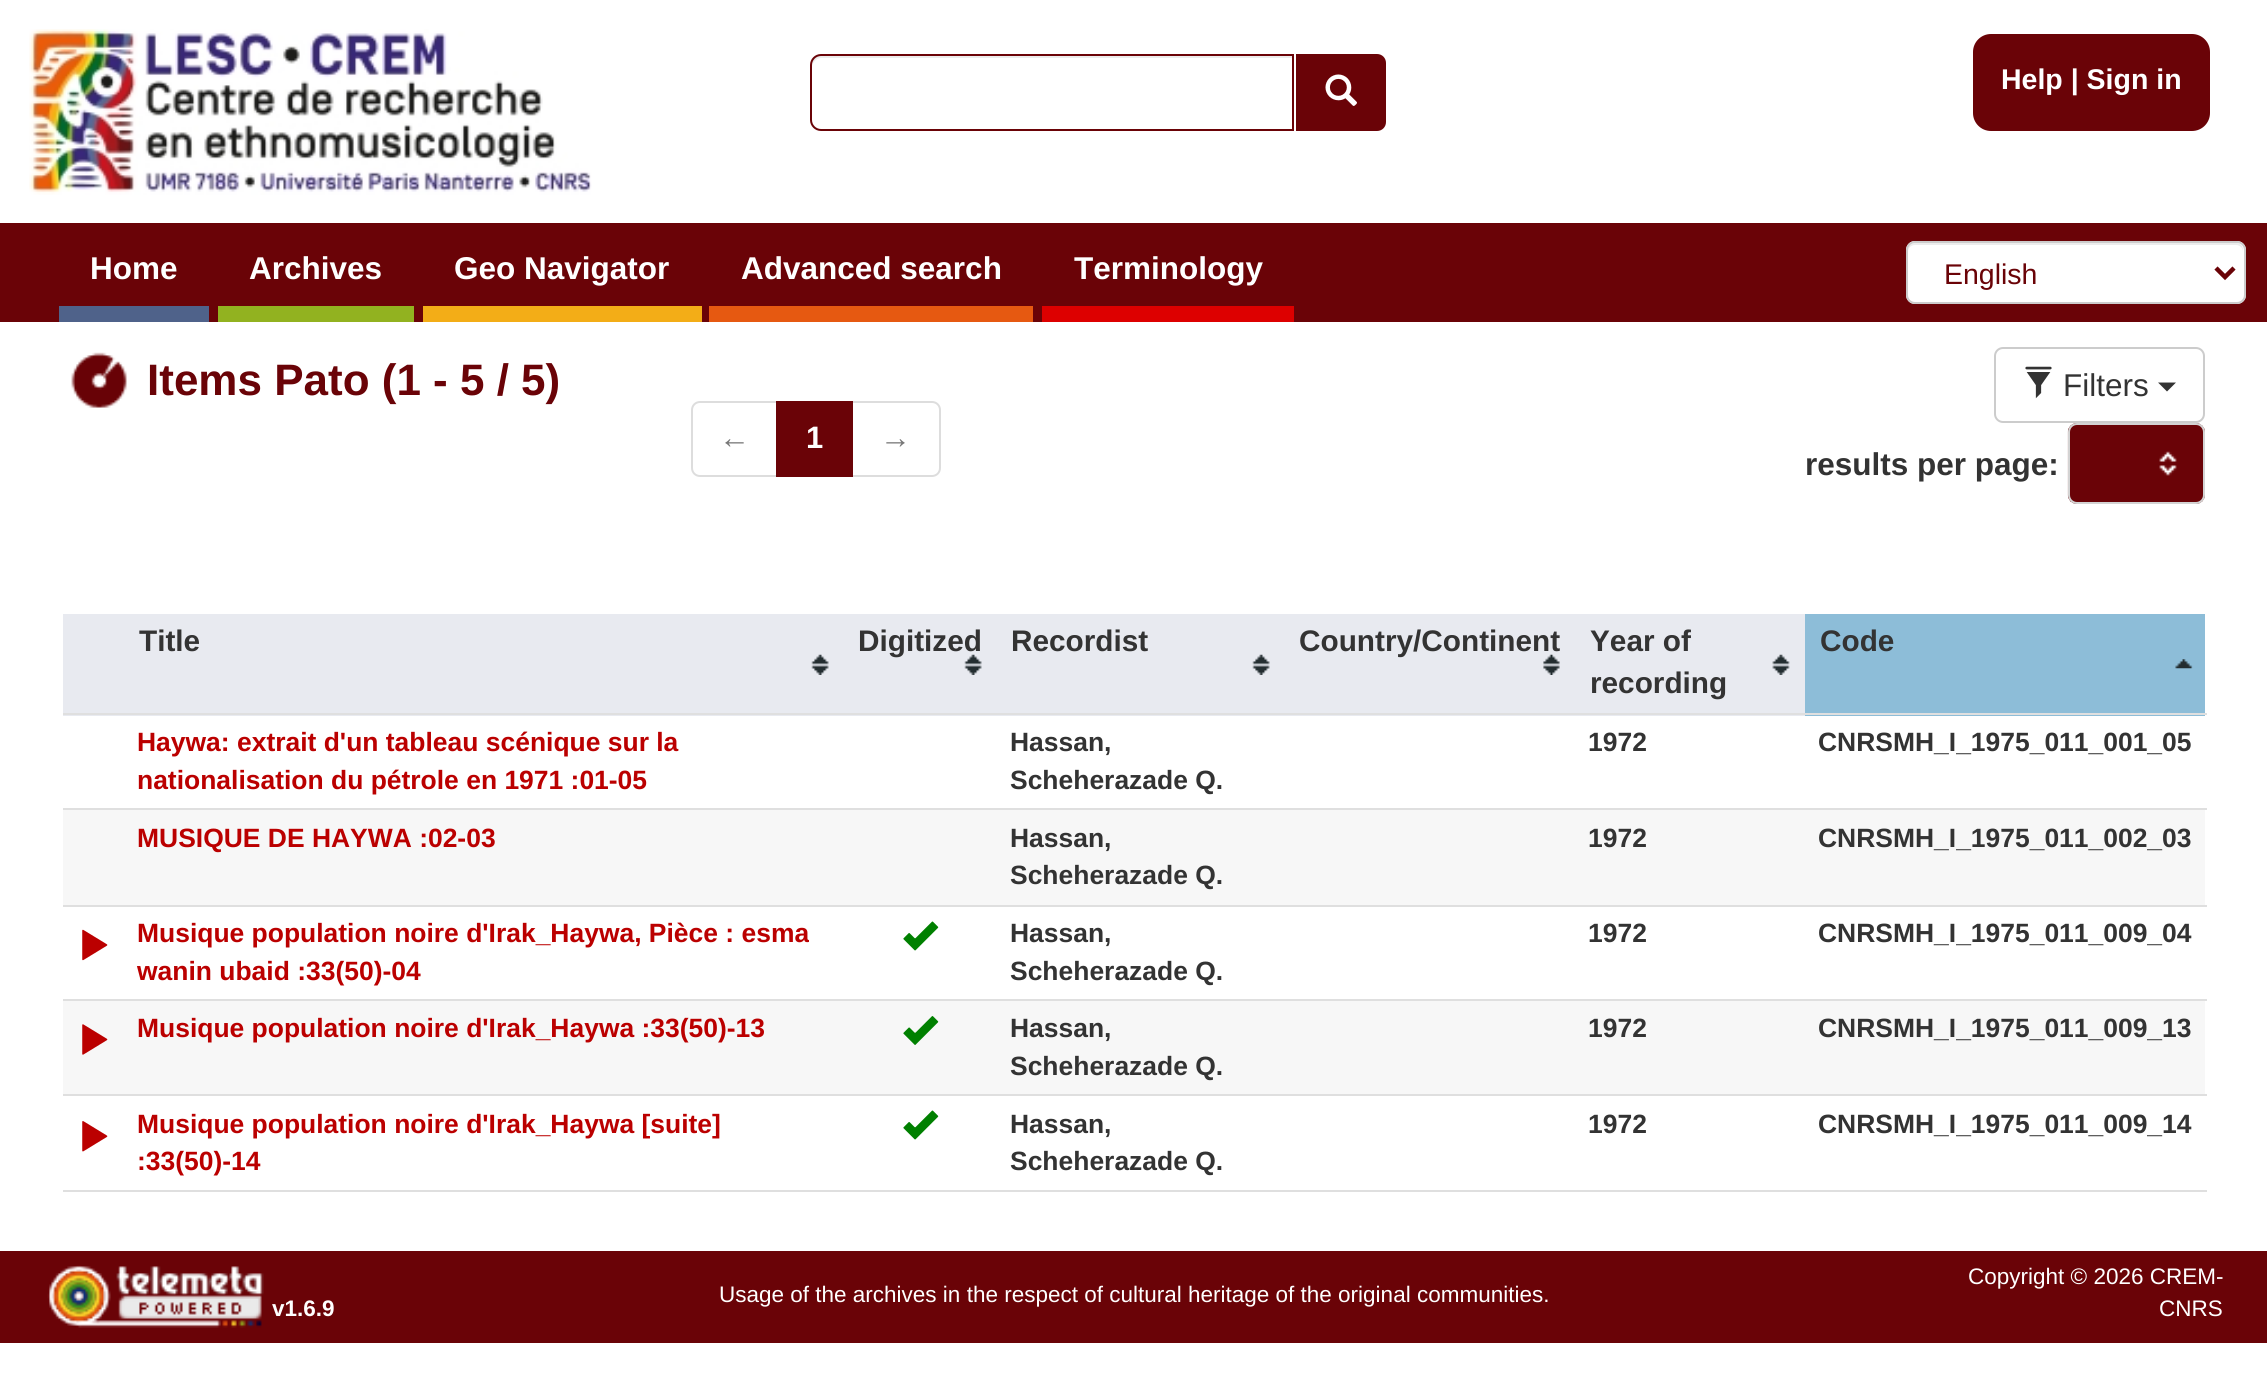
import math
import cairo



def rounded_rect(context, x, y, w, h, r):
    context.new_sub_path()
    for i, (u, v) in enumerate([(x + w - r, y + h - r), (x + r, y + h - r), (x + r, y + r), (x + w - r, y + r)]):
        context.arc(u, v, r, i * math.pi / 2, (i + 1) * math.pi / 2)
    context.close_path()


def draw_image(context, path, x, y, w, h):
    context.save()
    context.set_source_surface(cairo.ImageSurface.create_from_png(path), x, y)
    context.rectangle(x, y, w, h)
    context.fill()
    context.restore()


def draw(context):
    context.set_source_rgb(1, 1, 1)
    context.paint()
    draw_image(context, "images/1.png", 29, 29, 563, 166)
    context.set_source_rgb(236 / 255, 236 / 255, 236 / 255)
    context.new_path()
    context.move_to(821, 58)
    context.line_to(1292, 58)
    context.line_to(1292, 56)
    context.line_to(819, 56)
    context.curve_to(813, 57, 812, 63, 812, 68)
    context.curve_to(812, 63, 816, 58, 821, 58)
    context.close_path()
    context.fill()
    context.new_path()
    context.move_to(821, 55)
    context.line_to(1293, 55)
    context.line_to(1293, 130)
    context.line_to(821, 130)
    context.curve_to(815.5, 130, 811, 125.5, 811, 120)
    context.line_to(811, 65)
    context.curve_to(811, 59.5, 815.5, 55, 821, 55)
    context.close_path()
    context.set_source_rgb(106 / 255, 3 / 255, 7 / 255)
    context.stroke()
    context.new_path()
    context.move_to(1297, 55)
    context.line_to(1377, 55)
    context.curve_to(1381.5, 55, 1385, 58.5, 1385, 63)
    context.line_to(1385, 122)
    context.curve_to(1385, 126.5, 1381.5, 130, 1377, 130)
    context.line_to(1297, 130)
    context.close_path()
    context.fill_preserve()
    context.stroke()
    draw_image(context, "images/2.png", 1325, 74, 32, 32)
    rounded_rect(context, 1973, 34, 237, 97, 18)
    context.fill()
    context.rectangle(0, 223, 2267, 99)
    context.fill()
    context.set_source_rgb(79 / 255, 98 / 255, 138 / 255)
    context.rectangle(59, 306, 150, 16)
    context.fill()
    context.set_source_rgb(146 / 255, 178 / 255, 32 / 255)
    context.rectangle(218, 306, 196, 16)
    context.fill()
    context.set_source_rgb(243 / 255, 173 / 255, 23 / 255)
    context.rectangle(423, 306, 279, 16)
    context.fill()
    context.set_source_rgb(230 / 255, 89 / 255, 17 / 255)
    context.rectangle(709, 306, 324, 16)
    context.fill()
    context.set_source_rgb(221 / 255, 0, 0)
    context.rectangle(1042, 306, 252, 16)
    context.fill()
    context.set_source_rgb(1, 1, 1)
    rounded_rect(context, 1906, 241, 340, 63, 9)
    context.fill()
    context.set_source_rgb(236 / 255, 236 / 255, 236 / 255)
    context.new_path()
    context.move_to(1915, 245)
    context.line_to(2236, 245)
    context.curve_to(2240, 245, 2243, 248, 2243, 252)
    context.line_to(2243, 250)
    context.curve_to(2243, 246, 2240, 243, 2236, 243)
    context.line_to(1915, 243)
    context.curve_to(1911, 243, 1908, 246, 1908, 250)
    context.line_to(1908, 252)
    context.curve_to(1908, 248, 1911, 245, 1915, 245)
    context.close_path()
    context.fill()
    rounded_rect(context, 1907, 242, 338, 61, 8)
    context.set_source_rgb(204 / 255, 204 / 255, 204 / 255)
    context.stroke()
    context.new_path()
    context.move_to(2216, 268)
    context.line_to(2225, 277)
    context.line_to(2234, 268)
    context.set_source_rgb(106 / 255, 3 / 255, 7 / 255)
    context.set_line_width(4.5)
    context.stroke()
    draw_image(context, "images/3.png", 71, 352, 56, 56)
    context.new_path()
    context.move_to(700, 402)
    context.line_to(778, 402)
    context.line_to(778, 476)
    context.line_to(700, 476)
    context.curve_to(695.5, 476, 692, 472.5, 692, 468)
    context.line_to(692, 410)
    context.curve_to(692, 405.5, 695.5, 402, 700, 402)
    context.close_path()
    context.set_source_rgb(221 / 255, 221 / 255, 221 / 255)
    context.set_line_width(2)
    context.stroke()
    context.new_path()
    context.move_to(852, 402)
    context.line_to(932, 402)
    context.curve_to(936.5, 402, 940, 405.5, 940, 410)
    context.line_to(940, 468)
    context.curve_to(940, 472.5, 936.5, 476, 932, 476)
    context.line_to(852, 476)
    context.close_path()
    context.stroke()
    context.set_source_rgb(106 / 255, 3 / 255, 7 / 255)
    context.rectangle(776, 401, 77, 76)
    context.fill()
    rounded_rect(context, 1995, 348, 209, 74, 8)
    context.set_source_rgb(204 / 255, 204 / 255, 204 / 255)
    context.stroke()
    draw_image(context, "images/4.png", 2025, 366, 27, 33)
    context.set_source_rgb(51 / 255, 51 / 255, 51 / 255)
    context.new_path()
    context.move_to(2158, 382.5)
    context.line_to(2176, 382.5)
    context.line_to(2167, 391.5)
    context.close_path()
    context.fill()
    draw_image(context, "images/5.png", 2067, 423, 138, 81)
    rounded_rect(context, 2069, 424, 135, 79, 8)
    context.set_source_rgb(211 / 255, 211 / 255, 211 / 255)
    context.stroke()
    draw_image(context, "images/6.png", 2159, 451, 18, 25)
    context.set_source_rgb(232 / 255, 234 / 255, 240 / 255)
    context.rectangle(63, 614, 1742, 102)
    context.fill()
    draw_image(context, "images/7.png", 811, 654, 18, 21)
    draw_image(context, "images/8.png", 964, 654, 18, 21)
    draw_image(context, "images/7.png", 1252, 654, 18, 21)
    draw_image(context, "images/9.png", 1543, 654, 17, 21)
    draw_image(context, "images/10.png", 1772, 654, 18, 21)
    context.set_source_rgb(141 / 255, 189 / 255, 216 / 255)
    context.rectangle(1805, 614, 400, 102)
    context.fill()
    draw_image(context, "images/11.png", 2175, 659, 18, 10)
    context.set_source_rgb(223 / 255, 223 / 255, 223 / 255)
    context.rectangle(63, 713, 2144, 2)
    context.fill()
    context.rectangle(63, 808, 2144, 2)
    context.fill()
    context.set_source_rgb(247 / 255, 247 / 255, 247 / 255)
    context.rectangle(63, 810, 2142, 95)
    context.fill()
    context.set_source_rgb(223 / 255, 223 / 255, 223 / 255)
    context.rectangle(63, 905, 2144, 2)
    context.fill()
    draw_image(context, "images/12.png", 82, 929, 26, 32)
    draw_image(context, "images/13.png", 903, 921, 36, 30)
    context.rectangle(63, 999, 2144, 2)
    context.fill()
    context.set_source_rgb(247 / 255, 247 / 255, 247 / 255)
    context.rectangle(63, 1001, 2142, 93)
    context.fill()
    draw_image(context, "images/14.png", 82, 1024, 26, 31)
    draw_image(context, "images/15.png", 903, 1016, 36, 29)
    context.set_source_rgb(223 / 255, 223 / 255, 223 / 255)
    context.rectangle(63, 1094, 2144, 2)
    context.fill()
    draw_image(context, "images/16.png", 82, 1121, 26, 31)
    draw_image(context, "images/13.png", 903, 1110, 36, 30)
    context.rectangle(63, 1190, 2144, 2)
    context.fill()
    context.set_source_rgb(106 / 255, 3 / 255, 7 / 255)
    context.rectangle(0, 1251, 2267, 92)
    context.fill()
    draw_image(context, "images/17.png", 47, 1265, 217, 63)
    context.select_font_face("Liberation Sans", cairo.FontSlant.NORMAL, cairo.FontWeight.BOLD)
    context.set_font_size(28.5)
    context.set_source_rgb(1, 1, 1)
    context.move_to(2001, 89)
    context.show_text("Help | Sign in")
    context.set_font_size(31.5)
    context.move_to(90, 279)
    context.show_text("Home")
    context.move_to(249, 279)
    context.show_text("Archives")
    context.move_to(454, 279)
    context.show_text("Geo Navigator")
    context.move_to(741, 279)
    context.show_text("Advanced search")
    context.move_to(1074, 279)
    context.show_text("Terminology")
    context.select_font_face("Liberation Sans")
    context.set_font_size(28.5)
    context.set_source_rgb(106 / 255, 3 / 255, 7 / 255)
    context.move_to(1944, 284)
    context.show_text("English")
    context.select_font_face("Liberation Sans", cairo.FontSlant.NORMAL, cairo.FontWeight.BOLD)
    context.set_font_size(44)
    context.move_to(147, 395)
    context.show_text("Items Pato (1 - 5 / 5)")
    context.set_font_size(31)
    context.set_source_rgb(119 / 255, 119 / 255, 119 / 255)
    context.move_to(719, 448)
    context.show_text("←")
    context.set_source_rgb(1, 1, 1)
    context.move_to(806, 448)
    context.show_text("1")
    context.set_source_rgb(119 / 255, 119 / 255, 119 / 255)
    context.move_to(880, 448)
    context.show_text("→")
    context.select_font_face("Liberation Sans")
    context.set_font_size(31.5)
    context.set_source_rgb(51 / 255, 51 / 255, 51 / 255)
    context.move_to(2063, 396)
    context.show_text("Filters")
    context.select_font_face("Liberation Sans", cairo.FontSlant.NORMAL, cairo.FontWeight.BOLD)
    context.move_to(1805, 475)
    context.show_text("results per page:")
    context.set_font_size(29.75)
    context.move_to(139, 651)
    context.show_text("Title")
    context.move_to(858, 651)
    context.show_text("Digitized")
    context.move_to(1011, 651)
    context.show_text("Recordist")
    context.move_to(1299, 651)
    context.show_text("Country/Continent")
    context.move_to(1590, 651)
    context.show_text("Year of")
    context.move_to(1590, 693)
    context.show_text("recording")
    context.move_to(1820, 651)
    context.show_text("Code")
    context.set_font_size(26.45)
    context.set_source_rgb(187 / 255, 0, 0)
    context.move_to(137, 751)
    context.show_text("Haywa: extrait d'un tableau scénique sur la")
    context.move_to(137, 789)
    context.show_text("nationalisation du pétrole en 1971 :01-05")
    context.set_source_rgb(51 / 255, 51 / 255, 51 / 255)
    context.move_to(1010, 751)
    context.show_text("Hassan,")
    context.move_to(1010, 789)
    context.show_text("Scheherazade Q.")
    context.move_to(1588, 751)
    context.show_text("1972")
    context.move_to(1818, 751)
    context.show_text("CNRSMH_I_1975_011_001_05")
    context.set_source_rgb(187 / 255, 0, 0)
    context.move_to(137, 847)
    context.show_text("MUSIQUE DE HAYWA :02-03")
    context.set_source_rgb(51 / 255, 51 / 255, 51 / 255)
    context.move_to(1010, 847)
    context.show_text("Hassan,")
    context.move_to(1010, 884)
    context.show_text("Scheherazade Q.")
    context.move_to(1588, 847)
    context.show_text("1972")
    context.move_to(1818, 847)
    context.show_text("CNRSMH_I_1975_011_002_03")
    context.set_source_rgb(187 / 255, 0, 0)
    context.move_to(137, 942)
    context.show_text("Musique population noire d'Irak_Haywa, Pièce : esma")
    context.move_to(137, 980)
    context.show_text("wanin ubaid :33(50)-04")
    context.set_source_rgb(51 / 255, 51 / 255, 51 / 255)
    context.move_to(1010, 942)
    context.show_text("Hassan,")
    context.move_to(1010, 980)
    context.show_text("Scheherazade Q.")
    context.move_to(1588, 942)
    context.show_text("1972")
    context.move_to(1818, 942)
    context.show_text("CNRSMH_I_1975_011_009_04")
    context.set_source_rgb(187 / 255, 0, 0)
    context.move_to(137, 1037)
    context.show_text("Musique population noire d'Irak_Haywa :33(50)-13")
    context.set_source_rgb(51 / 255, 51 / 255, 51 / 255)
    context.move_to(1010, 1037)
    context.show_text("Hassan,")
    context.move_to(1010, 1075)
    context.show_text("Scheherazade Q.")
    context.move_to(1588, 1037)
    context.show_text("1972")
    context.move_to(1818, 1037)
    context.show_text("CNRSMH_I_1975_011_009_13")
    context.set_source_rgb(187 / 255, 0, 0)
    context.move_to(137, 1133)
    context.show_text("Musique population noire d'Irak_Haywa [suite]")
    context.move_to(137, 1170)
    context.show_text(":33(50)-14")
    context.set_source_rgb(51 / 255, 51 / 255, 51 / 255)
    context.move_to(1010, 1133)
    context.show_text("Hassan,")
    context.move_to(1010, 1170)
    context.show_text("Scheherazade Q.")
    context.move_to(1588, 1133)
    context.show_text("1972")
    context.move_to(1818, 1133)
    context.show_text("CNRSMH_I_1975_011_009_14")
    context.set_font_size(22.5)
    context.set_source_rgb(1, 1, 1)
    context.move_to(272, 1316)
    context.show_text("v1.6.9")
    context.select_font_face("Liberation Sans")
    context.move_to(719, 1302)
    context.show_text("Usage of the archives in the respect of cultural heritage of the original communities.")
    context.move_to(1968, 1284)
    context.show_text("Copyright © 2026 CREM-")
    context.move_to(2159, 1316)
    context.show_text("CNRS")


surface = cairo.ImageSurface(cairo.Format.RGB24, 2267, 1380)
context = cairo.Context(surface)
options = cairo.FontOptions()
options.set_hint_metrics(cairo.HintMetrics.OFF)
options.set_hint_style(cairo.HintStyle.NONE)
context.set_font_options(options)
context.set_miter_limit(4)
draw(context)
surface.write_to_png("out.png")
